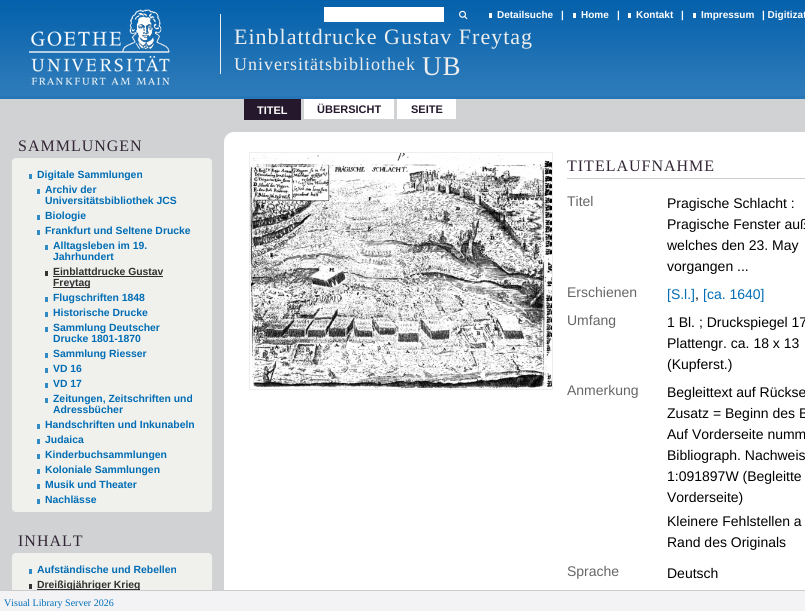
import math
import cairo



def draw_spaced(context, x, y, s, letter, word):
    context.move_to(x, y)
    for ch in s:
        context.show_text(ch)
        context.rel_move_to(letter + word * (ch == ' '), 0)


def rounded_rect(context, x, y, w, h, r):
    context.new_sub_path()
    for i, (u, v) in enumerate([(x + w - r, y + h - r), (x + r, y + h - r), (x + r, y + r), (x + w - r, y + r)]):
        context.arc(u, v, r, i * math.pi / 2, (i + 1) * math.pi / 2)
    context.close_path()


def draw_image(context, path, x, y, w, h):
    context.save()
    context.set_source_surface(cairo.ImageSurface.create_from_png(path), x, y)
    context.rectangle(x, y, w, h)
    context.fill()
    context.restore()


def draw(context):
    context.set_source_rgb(39 / 255, 118 / 255, 184 / 255)
    context.paint()
    draw_image(context, "images/1.png", 0, 0, 805, 96)
    draw_image(context, "images/2.png", 29, 9, 141, 76)
    context.set_source_rgb(1, 1, 1)
    context.rectangle(324, 7, 120, 15)
    context.fill()
    draw_image(context, "images/3.png", 459, 10, 9, 10)
    context.rectangle(489, 13, 3, 5)
    context.fill()
    context.rectangle(573, 13, 3, 5)
    context.fill()
    context.rectangle(628, 13, 3, 5)
    context.fill()
    context.rectangle(693, 13, 3, 5)
    context.fill()
    context.set_source_rgb(238 / 255, 238 / 255, 238 / 255)
    context.rectangle(220, 14, 1, 60)
    context.fill()
    context.set_source_rgb(209 / 255, 210 / 255, 212 / 255)
    context.rectangle(0, 99, 805, 33)
    context.fill()
    context.set_source_rgb(37 / 255, 24 / 255, 44 / 255)
    context.rectangle(244, 99, 57, 21)
    context.fill()
    context.set_source_rgb(1, 1, 1)
    context.rectangle(304, 99, 90, 20)
    context.fill()
    context.rectangle(397, 99, 59, 20)
    context.fill()
    context.set_source_rgb(209 / 255, 210 / 255, 212 / 255)
    context.rectangle(0, 132, 234, 458)
    context.fill()
    context.set_source_rgb(240 / 255, 240 / 255, 236 / 255)
    rounded_rect(context, 12.5, 158.5, 199, 353, 3.5)
    context.fill_preserve()
    context.set_line_width(1)
    context.stroke()
    context.set_source_rgb(49 / 255, 140 / 255, 198 / 255)
    context.rectangle(29, 174, 3, 5)
    context.fill()
    context.rectangle(37, 189, 3, 5)
    context.fill()
    context.rectangle(37, 215, 3, 5)
    context.fill()
    context.rectangle(37, 230, 3, 5)
    context.fill()
    context.rectangle(45, 245, 3, 5)
    context.fill()
    context.set_source_rgb(52 / 255, 52 / 255, 52 / 255)
    context.rectangle(45, 271, 3, 5)
    context.fill()
    context.set_source_rgb(48 / 255, 48 / 255, 48 / 255)
    context.rectangle(53, 276, 110, 1)
    context.fill()
    context.rectangle(53, 287, 37, 1)
    context.fill()
    context.set_source_rgb(49 / 255, 140 / 255, 198 / 255)
    context.rectangle(45, 297, 3, 5)
    context.fill()
    context.rectangle(45, 312, 3, 5)
    context.fill()
    context.rectangle(45, 327, 3, 5)
    context.fill()
    context.rectangle(45, 353, 3, 5)
    context.fill()
    context.rectangle(45, 368, 3, 5)
    context.fill()
    context.rectangle(45, 383, 3, 5)
    context.fill()
    context.rectangle(45, 398, 3, 5)
    context.fill()
    context.rectangle(37, 424, 3, 5)
    context.fill()
    context.rectangle(37, 439, 3, 5)
    context.fill()
    context.rectangle(37, 454, 3, 5)
    context.fill()
    context.rectangle(37, 469, 3, 5)
    context.fill()
    context.rectangle(37, 484, 3, 5)
    context.fill()
    context.rectangle(37, 499, 3, 5)
    context.fill()
    context.set_source_rgb(240 / 255, 240 / 255, 236 / 255)
    rounded_rect(context, 12.5, 553.5, 199, 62, 3.5)
    context.fill_preserve()
    context.stroke()
    context.set_source_rgb(49 / 255, 140 / 255, 198 / 255)
    context.rectangle(29, 569, 3, 5)
    context.fill()
    context.set_source_rgb(52 / 255, 52 / 255, 52 / 255)
    context.rectangle(29, 584, 3, 5)
    context.fill()
    context.set_source_rgb(48 / 255, 48 / 255, 48 / 255)
    context.rectangle(37, 589, 103, 1)
    context.fill()
    context.set_source_rgb(1, 1, 1)
    context.new_path()
    context.move_to(234, 132)
    context.line_to(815, 132)
    context.line_to(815, 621)
    context.line_to(224, 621)
    context.line_to(224, 142)
    context.curve_to(224, 136.5, 228.5, 132, 234, 132)
    context.close_path()
    context.fill()
    context.rectangle(249.5, 152.5, 303, 237)
    context.set_source_rgb(238 / 255, 238 / 255, 236 / 255)
    context.stroke()
    draw_image(context, "images/4.png", 250, 153, 302, 236)
    context.set_source_rgb(204 / 255, 204 / 255, 204 / 255)
    context.rectangle(567, 178, 238, 1)
    context.fill()
    context.set_source_rgb(243 / 255, 243 / 255, 246 / 255)
    context.rectangle(0, 591, 805, 20)
    context.fill()
    context.select_font_face("Liberation Sans", cairo.FontSlant.NORMAL, cairo.FontWeight.BOLD)
    context.set_font_size(10)
    context.set_source_rgb(1, 1, 1)
    context.move_to(497, 18)
    context.show_text("Detailsuche")
    context.move_to(561, 18)
    context.show_text("|")
    context.move_to(581, 18)
    context.show_text("Home")
    context.move_to(617, 18)
    context.show_text("|")
    context.move_to(636, 18)
    context.show_text("Kontakt")
    context.move_to(681, 18)
    context.show_text("|")
    context.move_to(701, 18)
    context.show_text("Impressum")
    context.move_to(762, 18)
    context.show_text("| Digitizat")
    context.select_font_face("Liberation Serif")
    context.set_font_size(22)
    context.set_source_rgb(238 / 255, 238 / 255, 238 / 255)
    draw_spaced(context, 234, 44, "Einblattdrucke Gustav Freytag", 1, 0)
    context.set_font_size(18)
    draw_spaced(context, 234, 70, "Universitätsbibliothek", 1, 0)
    context.set_font_size(27)
    draw_spaced(context, 422, 75, "UB", 1, 0)
    context.select_font_face("Liberation Sans", cairo.FontSlant.NORMAL, cairo.FontWeight.BOLD)
    context.set_font_size(11)
    context.set_source_rgb(1, 1, 1)
    context.move_to(257, 114)
    context.show_text("TITEL")
    context.set_source_rgb(37 / 255, 24 / 255, 44 / 255)
    context.move_to(317, 113)
    context.show_text("ÜBERSICHT")
    context.move_to(411, 113)
    context.show_text("SEITE")
    context.select_font_face("Liberation Serif")
    context.set_font_size(16)
    context.set_source_rgb(51 / 255, 38 / 255, 54 / 255)
    draw_spaced(context, 18, 151, "SAMMLUNGEN", 1, 0)
    context.select_font_face("Liberation Sans", cairo.FontSlant.NORMAL, cairo.FontWeight.BOLD)
    context.set_font_size(10.4)
    context.set_source_rgb(0, 109 / 255, 181 / 255)
    context.move_to(37, 178)
    context.show_text("Digitale Sammlungen")
    context.move_to(45, 193)
    context.show_text("Archiv der")
    context.move_to(45, 204)
    context.show_text("Universitätsbibliothek JCS")
    context.move_to(45, 219)
    context.show_text("Biologie")
    context.move_to(45, 234)
    context.show_text("Frankfurt und Seltene Drucke")
    context.move_to(53, 249)
    context.show_text("Alltagsleben im 19.")
    context.move_to(53, 260)
    context.show_text("Jahrhundert")
    context.set_source_rgb(48 / 255, 48 / 255, 48 / 255)
    context.move_to(53, 275)
    context.show_text("Einblattdrucke Gustav")
    context.move_to(53, 286)
    context.show_text("Freytag")
    context.set_source_rgb(0, 109 / 255, 181 / 255)
    context.move_to(53, 301)
    context.show_text("Flugschriften 1848")
    context.move_to(53, 316)
    context.show_text("Historische Drucke")
    context.move_to(53, 331)
    context.show_text("Sammlung Deutscher")
    context.move_to(53, 342)
    context.show_text("Drucke 1801-1870")
    context.move_to(53, 357)
    context.show_text("Sammlung Riesser")
    context.move_to(53, 372)
    context.show_text("VD 16")
    context.move_to(53, 387)
    context.show_text("VD 17")
    context.move_to(53, 402)
    context.show_text("Zeitungen, Zeitschriften und")
    context.move_to(53, 413)
    context.show_text("Adressbücher")
    context.move_to(45, 428)
    context.show_text("Handschriften und Inkunabeln")
    context.move_to(45, 443)
    context.show_text("Judaica")
    context.move_to(45, 458)
    context.show_text("Kinderbuchsammlungen")
    context.move_to(45, 473)
    context.show_text("Koloniale Sammlungen")
    context.move_to(45, 488)
    context.show_text("Musik und Theater")
    context.move_to(45, 503)
    context.show_text("Nachlässe")
    context.select_font_face("Liberation Serif")
    context.set_font_size(16)
    context.set_source_rgb(51 / 255, 38 / 255, 54 / 255)
    draw_spaced(context, 18, 546, "INHALT", 1, 0)
    context.select_font_face("Liberation Sans", cairo.FontSlant.NORMAL, cairo.FontWeight.BOLD)
    context.set_font_size(10.4)
    context.set_source_rgb(0, 109 / 255, 181 / 255)
    context.move_to(37, 573)
    context.show_text("Aufständische und Rebellen")
    context.set_source_rgb(48 / 255, 48 / 255, 48 / 255)
    context.move_to(37, 588)
    context.show_text("Dreißigjähriger Krieg")
    context.select_font_face("Liberation Serif")
    context.set_font_size(16)
    context.set_source_rgb(51 / 255, 38 / 255, 54 / 255)
    draw_spaced(context, 567, 171, "TITELAUFNAHME", 1, 0)
    context.select_font_face("Liberation Sans")
    context.set_font_size(14)
    context.set_source_rgb(102 / 255, 102 / 255, 102 / 255)
    context.move_to(567, 206)
    context.show_text("Titel")
    context.set_source_rgb(0, 0, 0)
    context.move_to(667, 208)
    context.show_text("Pragische Schlacht :")
    context.move_to(667, 229)
    context.show_text("Pragische Fenster auß")
    context.move_to(667, 250)
    context.show_text("welches den 23. May")
    context.move_to(667, 271)
    context.show_text("vorgangen ...")
    context.set_source_rgb(102 / 255, 102 / 255, 102 / 255)
    context.move_to(567, 297)
    context.show_text("Erschienen")
    context.set_source_rgb(0, 109 / 255, 181 / 255)
    context.move_to(667, 299)
    context.show_text("[S.l.]")
    context.set_source_rgb(0, 0, 0)
    context.move_to(695, 299)
    context.show_text(",")
    context.set_source_rgb(0, 109 / 255, 181 / 255)
    context.move_to(703, 299)
    context.show_text("[ca. 1640]")
    context.set_source_rgb(102 / 255, 102 / 255, 102 / 255)
    context.move_to(567, 325)
    context.show_text("Umfang")
    context.set_source_rgb(0, 0, 0)
    context.move_to(667, 327)
    context.show_text("1 Bl. ; Druckspiegel 17")
    context.move_to(667, 348)
    context.show_text("Plattengr. ca. 18 x 13")
    context.move_to(667, 369)
    context.show_text("(Kupferst.)")
    context.set_source_rgb(102 / 255, 102 / 255, 102 / 255)
    context.move_to(567, 395)
    context.show_text("Anmerkung")
    context.set_source_rgb(0, 0, 0)
    context.move_to(667, 397)
    context.show_text("Begleittext auf Rückse")
    context.move_to(667, 418)
    context.show_text("Zusatz = Beginn des B")
    context.move_to(667, 439)
    context.show_text("Auf Vorderseite numm")
    context.move_to(667, 460)
    context.show_text("Bibliograph. Nachweis")
    context.move_to(667, 481)
    context.show_text("1:091897W (Begleitte")
    context.move_to(667, 502)
    context.show_text("Vorderseite)")
    context.move_to(667, 526)
    context.show_text("Kleinere Fehlstellen a")
    context.move_to(667, 547)
    context.show_text("Rand des Originals")
    context.set_source_rgb(102 / 255, 102 / 255, 102 / 255)
    context.move_to(567, 576)
    context.show_text("Sprache")
    context.set_source_rgb(0, 0, 0)
    context.move_to(667, 578)
    context.show_text("Deutsch")
    context.set_source_rgb(204 / 255, 204 / 255, 204 / 255)
    context.rectangle(0, 590, 805, 1)
    context.fill()
    context.select_font_face("Liberation Serif")
    context.set_font_size(10)
    context.set_source_rgb(0, 109 / 255, 181 / 255)
    context.move_to(4, 606)
    context.show_text("Visual Library Server 2026")


surface = cairo.ImageSurface(cairo.Format.RGB24, 805, 611)
context = cairo.Context(surface)
options = cairo.FontOptions()
options.set_hint_metrics(cairo.HintMetrics.OFF)
options.set_hint_style(cairo.HintStyle.NONE)
context.set_font_options(options)
context.set_miter_limit(4)
draw(context)
surface.write_to_png("out.png")
